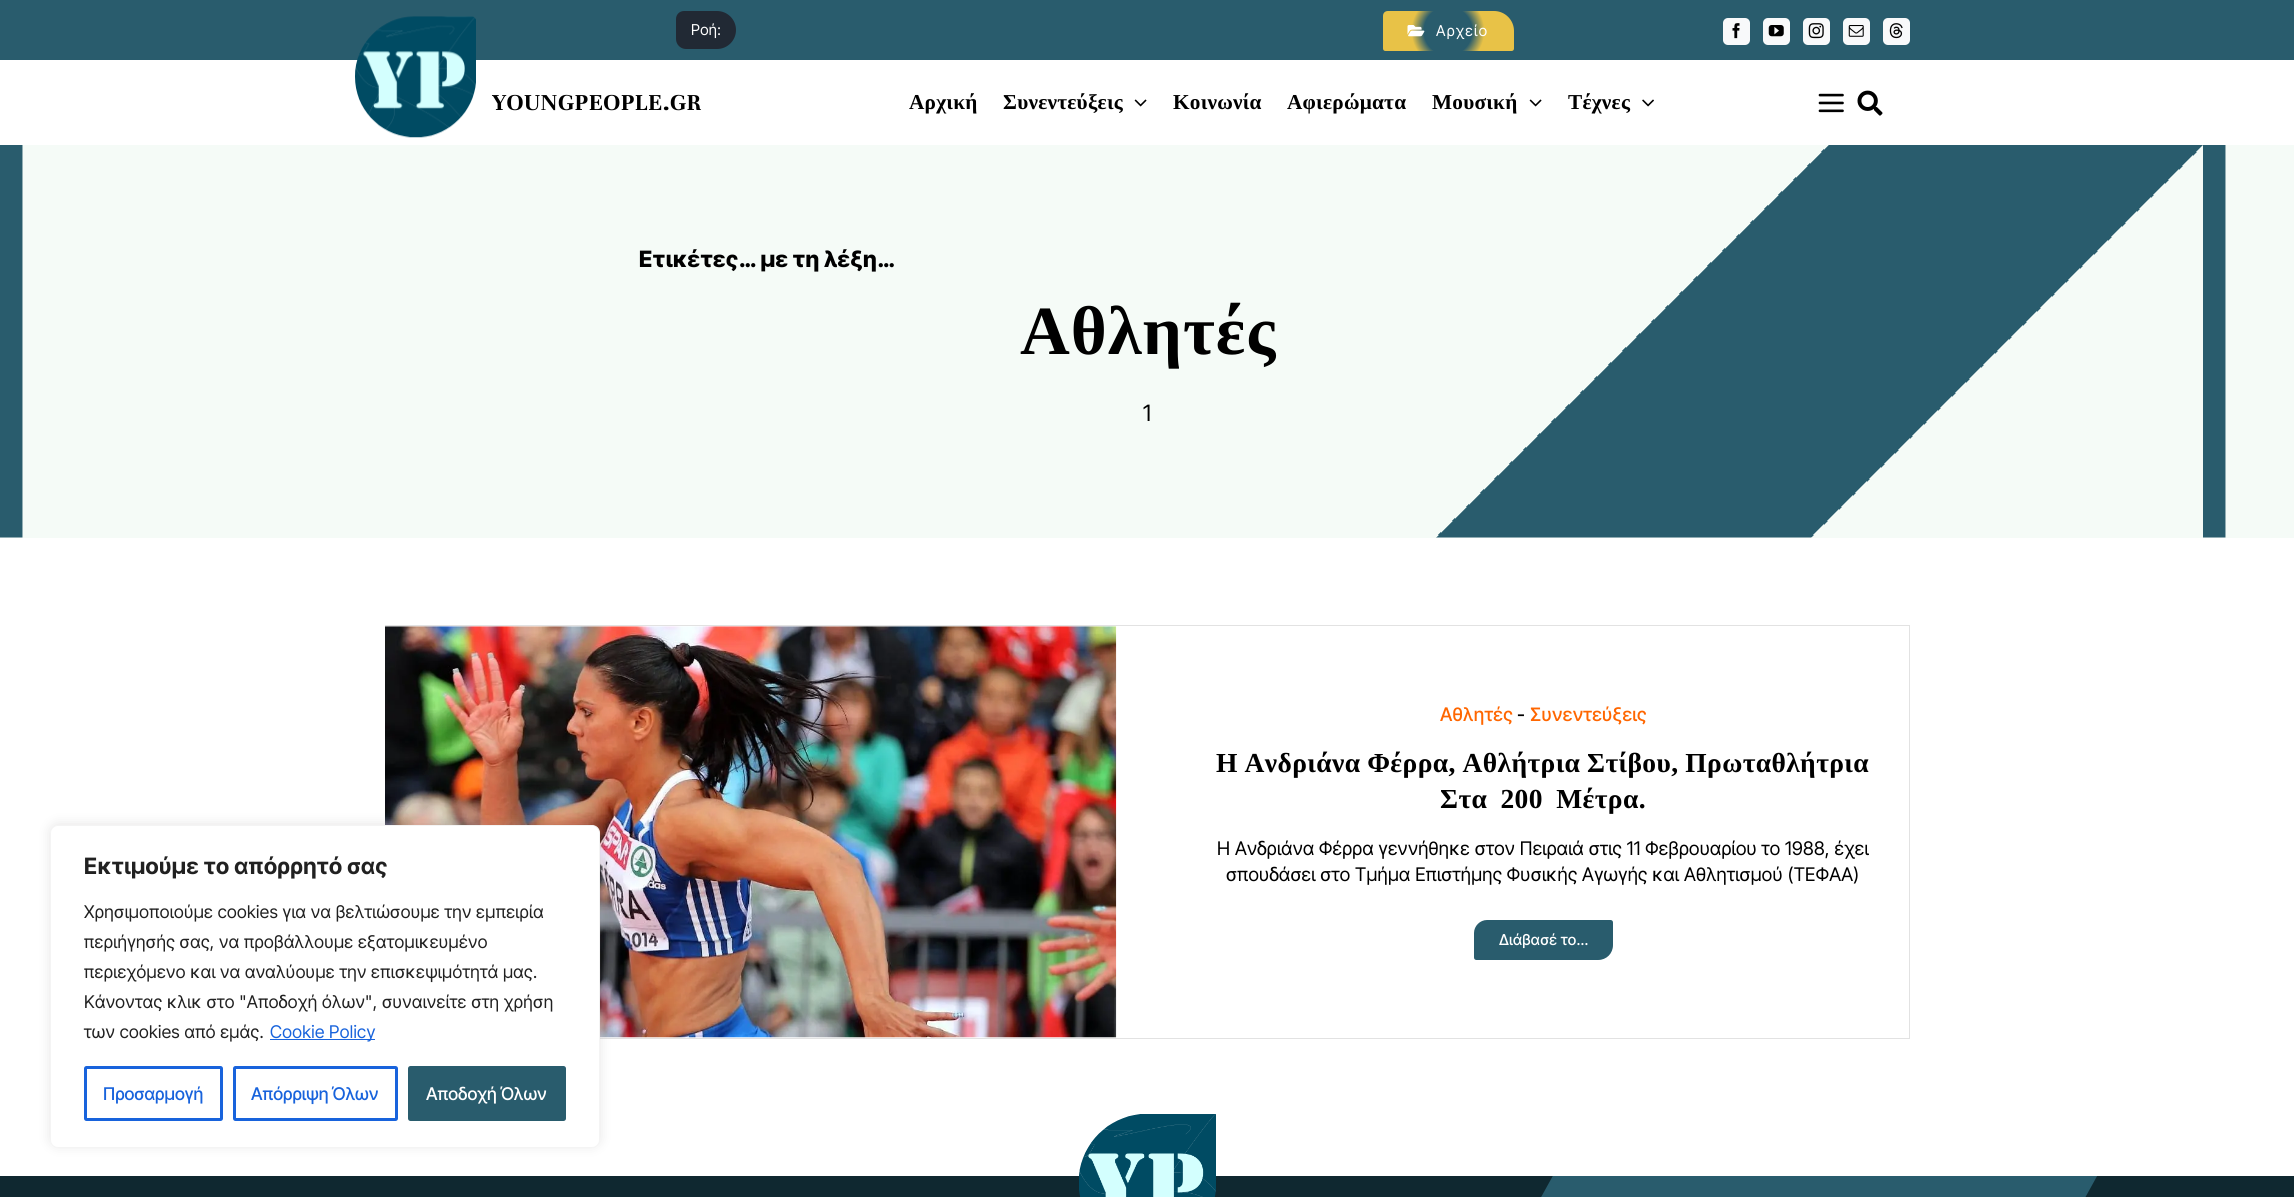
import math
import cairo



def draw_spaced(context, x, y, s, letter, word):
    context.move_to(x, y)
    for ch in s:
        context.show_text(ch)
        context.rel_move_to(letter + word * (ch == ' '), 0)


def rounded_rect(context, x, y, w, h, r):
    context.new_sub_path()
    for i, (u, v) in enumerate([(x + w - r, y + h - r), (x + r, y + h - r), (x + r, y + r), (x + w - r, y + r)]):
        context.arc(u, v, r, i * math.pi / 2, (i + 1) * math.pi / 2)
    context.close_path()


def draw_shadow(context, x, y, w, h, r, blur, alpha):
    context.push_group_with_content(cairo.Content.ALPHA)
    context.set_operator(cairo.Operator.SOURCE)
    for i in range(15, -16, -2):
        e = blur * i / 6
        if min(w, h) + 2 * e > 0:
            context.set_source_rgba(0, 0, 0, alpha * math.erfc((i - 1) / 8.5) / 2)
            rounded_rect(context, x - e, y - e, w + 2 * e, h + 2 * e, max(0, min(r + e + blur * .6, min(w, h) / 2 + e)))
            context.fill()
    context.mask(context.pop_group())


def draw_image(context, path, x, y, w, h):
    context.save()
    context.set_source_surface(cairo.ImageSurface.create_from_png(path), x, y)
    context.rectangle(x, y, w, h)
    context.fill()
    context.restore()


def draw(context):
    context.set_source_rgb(1, 1, 1)
    context.paint()
    context.set_source_rgb(41 / 255, 92 / 255, 109 / 255)
    context.rectangle(0, 0, 2294, 60)
    context.fill()
    context.set_source_rgb(33 / 255, 41 / 255, 52 / 255)
    context.new_path()
    context.move_to(684, 11)
    context.line_to(717, 11)
    context.curve_to(727.5, 11, 736, 19.5, 736, 30)
    context.curve_to(736, 40.5, 727.5, 49, 717, 49)
    context.line_to(686, 49)
    context.curve_to(680.5, 49, 676, 44.5, 676, 39)
    context.line_to(676, 19)
    context.curve_to(676, 14.5, 679.5, 11, 684, 11)
    context.close_path()
    context.fill()
    gradient = cairo.RadialGradient(1448, 31, 0, 1448, 31, 69)
    gradient.add_color_stop_rgba(0.35, 41 / 255, 92 / 255, 109 / 255, 1)
    gradient.add_color_stop_rgba(0.53, 232 / 255, 194 / 255, 71 / 255, 1)
    context.set_source(gradient)
    context.new_path()
    context.move_to(1388, 11)
    context.line_to(1494, 11)
    context.curve_to(1505, 11, 1514, 20, 1514, 31)
    context.line_to(1514, 48.5)
    context.curve_to(1514, 50, 1513, 51, 1511.5, 51)
    context.line_to(1385.5, 51)
    context.curve_to(1384, 51, 1383, 50, 1383, 48.5)
    context.line_to(1383, 16)
    context.curve_to(1383, 13, 1385, 11, 1388, 11)
    context.close_path()
    context.fill()
    draw_image(context, "images/1.png", 1407, 25, 18, 12)
    context.set_source_rgb(248 / 255, 249 / 255, 250 / 255)
    rounded_rect(context, 1723, 18, 27, 27, 5)
    context.fill()
    draw_image(context, "images/2.png", 1732, 23, 8, 16)
    rounded_rect(context, 1763, 18, 27, 27, 5)
    context.fill()
    draw_image(context, "images/3.png", 1768, 25, 16, 12)
    rounded_rect(context, 1803, 18, 27, 27, 5)
    context.fill()
    draw_image(context, "images/4.png", 1808, 23, 16, 16)
    rounded_rect(context, 1843, 18, 27, 27, 5)
    context.fill()
    draw_image(context, "images/5.png", 1848, 25, 16, 12)
    rounded_rect(context, 1883, 18, 27, 27, 5)
    context.fill()
    draw_image(context, "images/6.png", 1889, 23, 14, 16)
    draw_image(context, "images/7.png", 355, 16, 121, 122)
    draw_image(context, "images/8.png", 1134, 99, 13, 8)
    draw_image(context, "images/8.png", 1529, 99, 13, 8)
    draw_image(context, "images/9.png", 1642, 99, 12, 8)
    draw_image(context, "images/10.png", 1818, 93, 26, 20)
    draw_image(context, "images/11.png", 1857, 90, 26, 26)
    context.set_source_rgb(245 / 255, 251 / 255, 247 / 255)
    context.rectangle(0, 145, 2294, 393)
    context.fill()
    draw_image(context, "images/12.png", 0, 145, 2226, 393)
    context.set_source_rgb(226 / 255, 226 / 255, 226 / 255)
    context.rectangle(385, 625, 1525, 1)
    context.fill()
    context.rectangle(1909, 625, 1, 414)
    context.fill()
    context.rectangle(600, 1038, 1310, 1)
    context.fill()
    draw_image(context, "images/13.png", 385, 626, 732, 412)
    context.set_source_rgb(41 / 255, 92 / 255, 109 / 255)
    context.new_path()
    context.move_to(1487, 920)
    context.line_to(1610.5, 920)
    context.curve_to(1612, 920, 1613, 921, 1613, 922.5)
    context.line_to(1613, 945)
    context.curve_to(1613, 953.5, 1606.5, 960, 1598, 960)
    context.line_to(1476.5, 960)
    context.curve_to(1475, 960, 1474, 959, 1474, 957.5)
    context.line_to(1474, 933)
    context.curve_to(1474, 926, 1480, 920, 1487, 920)
    context.close_path()
    context.fill()
    context.set_source_rgb(15 / 255, 40 / 255, 48 / 255)
    context.rectangle(0, 1176, 2294, 21)
    context.fill()
    draw_image(context, "images/14.png", 1079, 1114, 137, 83)
    context.save()
    context.rectangle(0, 1176, 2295, 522)
    context.clip()
    context.set_source_rgb(41 / 255, 92 / 255, 109 / 255)
    context.new_path()
    context.move_to(1640, 1018)
    context.curve_to(1648, 1004, 1667, 993, 1682, 993)
    context.line_to(2132, 993)
    context.curve_to(2169, 993, 2184, 1019, 2166, 1051)
    context.line_to(1639, 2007)
    context.line_to(1094, 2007)
    context.close_path()
    context.fill()
    context.restore()
    context.set_source_rgb(172 / 255, 171 / 255, 171 / 255)
    draw_shadow(context, 50, 824, 550, 322, 8, 6, 0.3)
    context.set_source_rgb(1, 1, 1)
    rounded_rect(context, 50.5, 825.5, 549, 322, 7.5)
    context.fill_preserve()
    context.set_source_rgb(244 / 255, 244 / 255, 244 / 255)
    context.set_line_width(1)
    context.stroke()
    context.set_source_rgb(24 / 255, 99 / 255, 220 / 255)
    context.rectangle(270, 1039, 105, 1)
    context.fill()
    rounded_rect(context, 85.5, 1067.5, 136, 52, 1)
    context.set_line_width(3)
    context.stroke()
    rounded_rect(context, 234.5, 1067.5, 162, 52, 1)
    context.stroke()
    context.set_source_rgb(41 / 255, 92 / 255, 109 / 255)
    rounded_rect(context, 409.5, 1067.5, 155, 52, 1)
    context.fill_preserve()
    context.stroke()
    context.select_font_face("Inter Tight")
    context.set_font_size(15)
    context.set_source_rgb(1, 1, 1)
    draw_spaced(context, 691, 35, "Ροή:", 0.35, 0)
    draw_spaced(context, 1436, 36, "Αρχείο", 1.25, 0)
    context.select_font_face("Unna", cairo.FontSlant.NORMAL, cairo.FontWeight.BOLD)
    context.set_font_size(25)
    context.set_source_rgb(0, 0, 0)
    draw_spaced(context, 492, 110, "YOUNGPEOPLE.GR", 0.4, 0)
    context.select_font_face("Liberation Serif", cairo.FontSlant.NORMAL, cairo.FontWeight.BOLD)
    context.set_font_size(21.25)
    draw_spaced(context, 909, 109, "Αρχική", 0.25, 0)
    draw_spaced(context, 1003, 109, "Συνεντεύξεις", 0.25, 0)
    draw_spaced(context, 1173, 109, "Κοινωνία", 0.25, 0)
    draw_spaced(context, 1287, 109, "Αφιερώματα", 0.25, 0)
    draw_spaced(context, 1432, 109, "Μουσική", 0.25, 0)
    draw_spaced(context, 1568, 109, "Τέχνες", 0.25, 0)
    context.select_font_face("Inter Tight ExtraBold")
    context.set_font_size(22.5)
    draw_spaced(context, 639, 267, "Ετικέτες… με τη λέξη…", 0.3, 0)
    context.select_font_face("Liberation Serif", cairo.FontSlant.NORMAL, cairo.FontWeight.BOLD)
    context.set_font_size(69)
    draw_spaced(context, 1020, 354, "Αθλητές", 1, 0)
    context.select_font_face("Inter Tight")
    context.set_font_size(22.5)
    draw_spaced(context, 1143, 421, "1", 0.35, 0)
    context.select_font_face("Inter Tight Medium")
    context.set_font_size(18.75)
    context.set_source_rgb(1, 102 / 255, 0)
    draw_spaced(context, 1440, 721, "Αθλητές", 0.28, 0)
    context.set_source_rgb(0, 0, 0)
    draw_spaced(context, 1517, 721, "-", 0.28, 0)
    context.set_source_rgb(1, 102 / 255, 0)
    draw_spaced(context, 1530, 721, "Συνεντεύξεις", 0.28, 0)
    context.select_font_face("Liberation Serif", cairo.FontSlant.NORMAL, cairo.FontWeight.BOLD)
    context.set_font_size(27.5)
    context.set_source_rgb(0, 0, 0)
    draw_spaced(context, 1216, 772, "Η Ανδριάνα Φέρρα, Αθλήτρια Στίβου, Πρωταθλήτρια", 0.4, -0.5)
    draw_spaced(context, 1440, 808, "Στα 200 Μέτρα.", 0.4, 6)
    context.select_font_face("Inter Tight")
    context.set_font_size(18.75)
    draw_spaced(context, 1217, 855, "Η Ανδριάνα Φέρρα γεννήθηκε στον Πειραιά στις 11 Φεβρουαρίου το 1988, έχει", 0.28, 0)
    draw_spaced(context, 1226, 881, "σπουδάσει στο Τμήμα Επιστήμης Φυσικής Αγωγής και Αθλητισμού (ΤΕΦΑΑ)", 0.28, 0)
    context.select_font_face("Inter Tight Medium")
    context.set_font_size(15)
    context.set_source_rgb(1, 1, 1)
    draw_spaced(context, 1499, 945, "Διάβασέ το…", 0.25, 0)
    context.select_font_face("Inter Tight", cairo.FontSlant.NORMAL, cairo.FontWeight.BOLD)
    context.set_font_size(22.5)
    context.set_source_rgb(33 / 255, 33 / 255, 33 / 255)
    draw_spaced(context, 84, 874, "Εκτιμούμε το απόρρητό σας", 0.35, 0)
    context.select_font_face("Inter Tight")
    context.set_font_size(17.5)
    draw_spaced(context, 84, 918, "Χρησιμοποιούμε cookies για να βελτιώσουμε την εμπειρία", 0.35, 0)
    draw_spaced(context, 84, 948, "περιήγησής σας, να προβάλλουμε εξατομικευμένο", 0.35, 0)
    draw_spaced(context, 84, 978, "περιεχόμενο και να αναλύουμε την επισκεψιμότητά μας.", 0.35, 0)
    draw_spaced(context, 84, 1008, "Κάνοντας κλικ στο \"Αποδοχή όλων\", συναινείτε στη χρήση", 0.35, 0)
    draw_spaced(context, 84, 1038, "των cookies από εμάς.", 0.35, 0)
    context.set_source_rgb(24 / 255, 99 / 255, 220 / 255)
    draw_spaced(context, 270, 1038, "Cookie Policy", 0.35, 0)
    context.select_font_face("Inter Tight Medium")
    context.move_to(103, 1100)
    context.show_text("Προσαρμογή")
    context.move_to(251, 1100)
    context.show_text("Απόρριψη Όλων")
    context.set_source_rgb(1, 1, 1)
    context.move_to(426, 1100)
    context.show_text("Αποδοχή Όλων")


surface = cairo.ImageSurface(cairo.Format.RGB24, 2294, 1197)
context = cairo.Context(surface)
options = cairo.FontOptions()
options.set_hint_metrics(cairo.HintMetrics.OFF)
options.set_hint_style(cairo.HintStyle.NONE)
context.set_font_options(options)
context.set_miter_limit(4)
draw(context)
surface.write_to_png("out.png")
